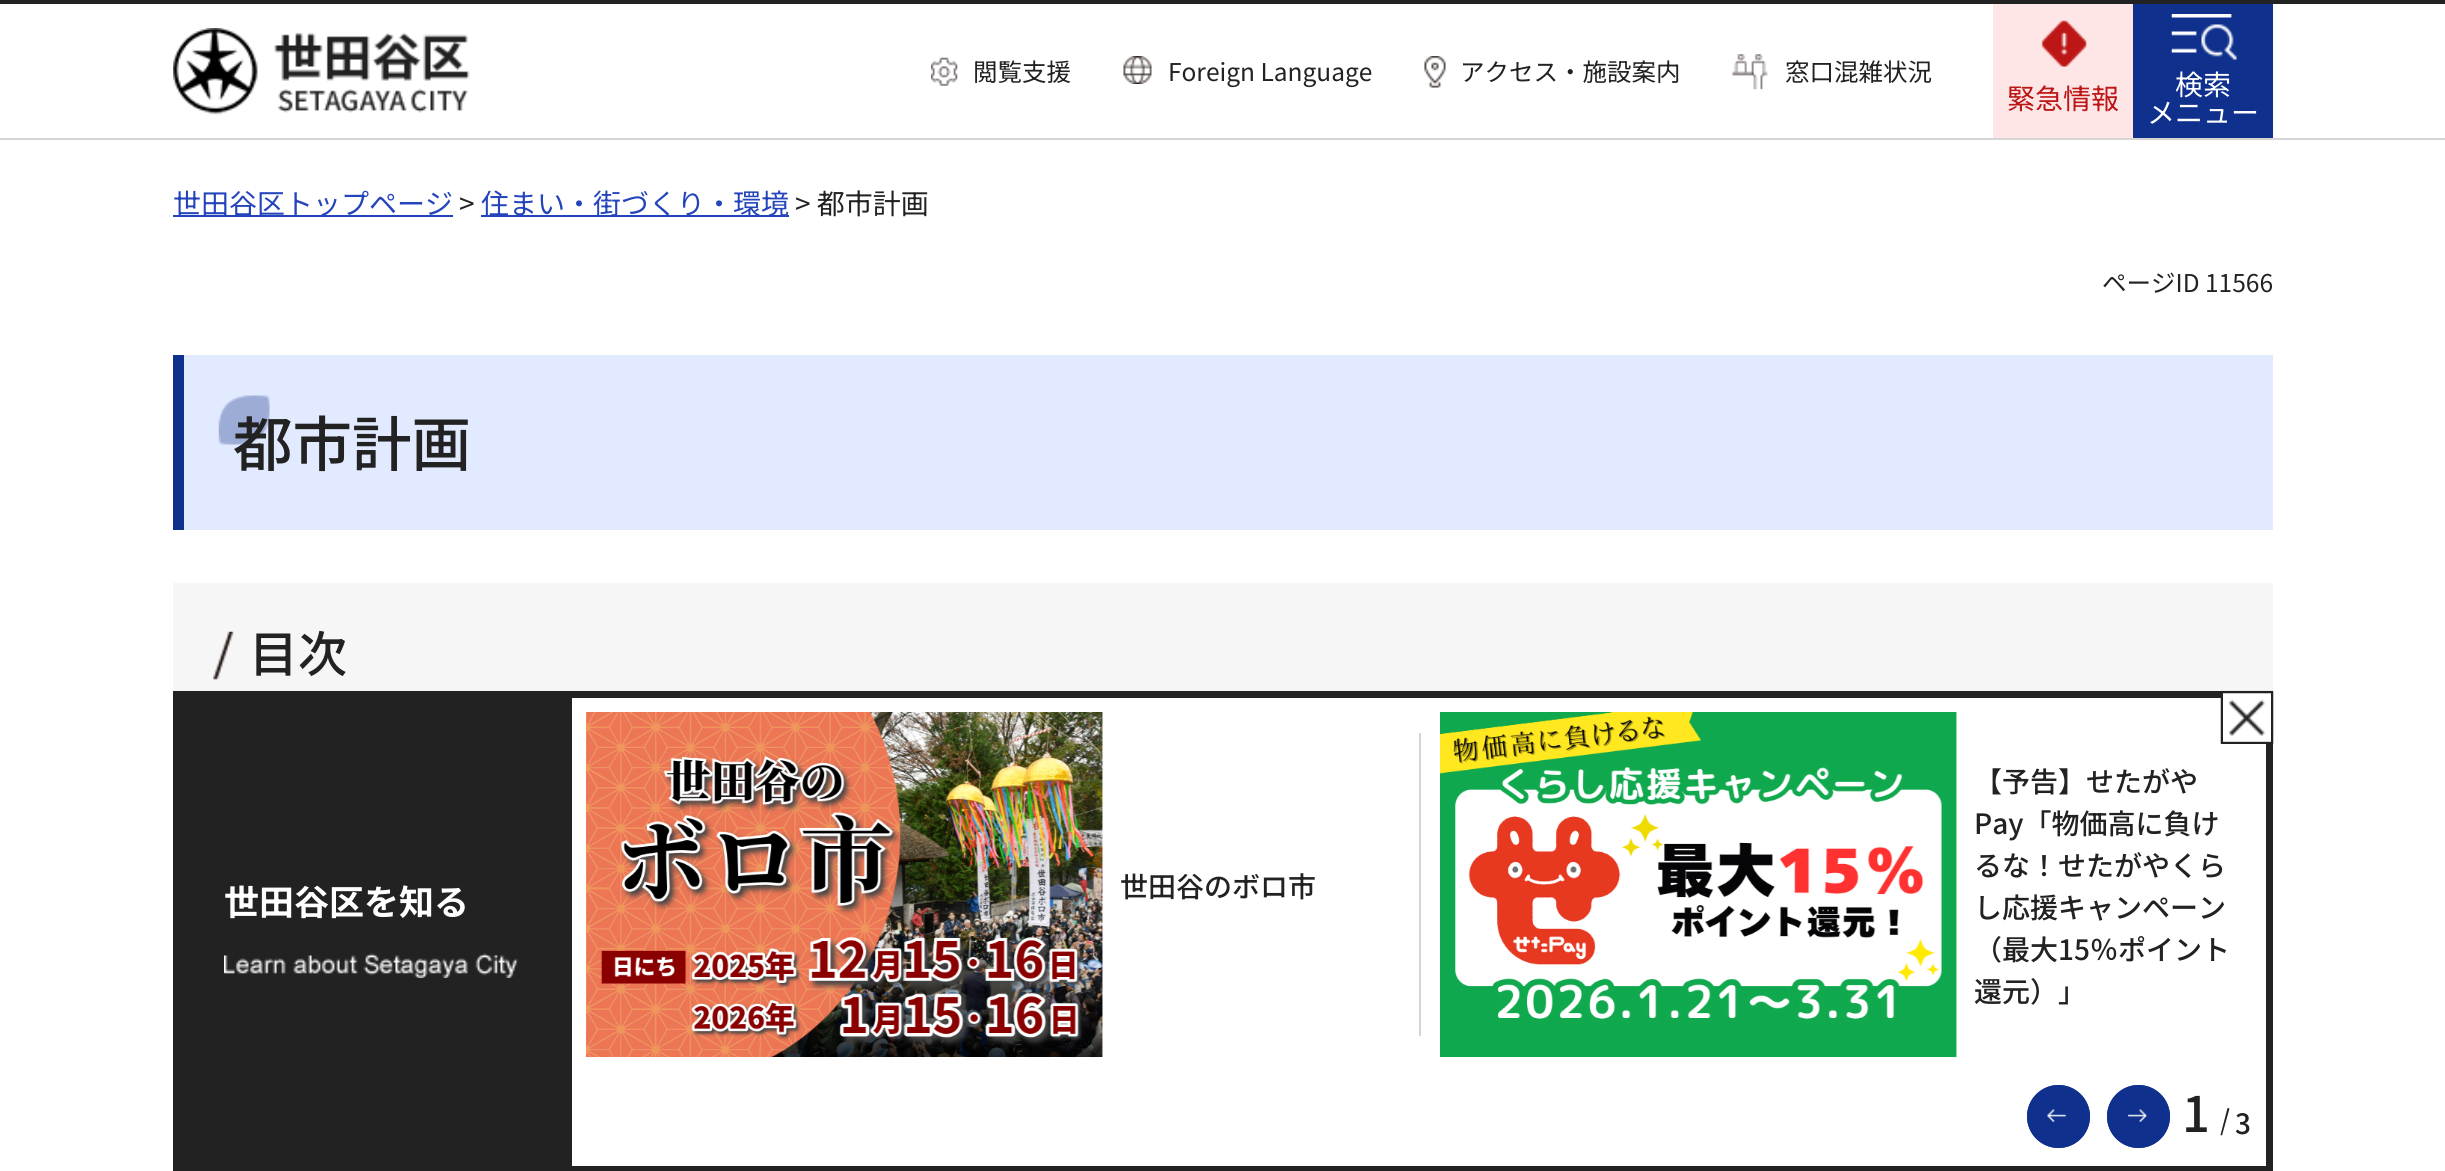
import math
import cairo



def draw_image(context, path, x, y, w, h):
    context.save()
    context.set_source_surface(cairo.ImageSurface.create_from_png(path), x, y)
    context.rectangle(x, y, w, h)
    context.fill()
    context.restore()


def draw(context):
    context.set_source_rgb(1, 1, 1)
    context.paint()
    context.set_source_rgb(34 / 255, 34 / 255, 34 / 255)
    context.rectangle(0, 0, 2445, 4)
    context.fill()
    context.set_source_rgb(213 / 255, 213 / 255, 213 / 255)
    context.rectangle(0, 138, 2445, 2)
    context.fill()
    draw_image(context, "images/1.png", 173, 28, 297, 87)
    draw_image(context, "images/2.png", 931, 57, 27, 29)
    draw_image(context, "images/3.png", 1123, 56, 29, 28)
    draw_image(context, "images/4.png", 1424, 56, 22, 32)
    draw_image(context, "images/5.png", 1732, 54, 36, 36)
    context.set_source_rgb(1, 230 / 255, 230 / 255)
    context.rectangle(1993, 4, 140, 134)
    context.fill()
    draw_image(context, "images/6.png", 2041, 20, 46, 47)
    context.set_source_rgb(15 / 255, 49 / 255, 141 / 255)
    context.rectangle(2133, 4, 140, 134)
    context.fill()
    draw_image(context, "images/7.png", 2171, 14, 66, 46)
    context.set_source_rgb(36 / 255, 68 / 255, 187 / 255)
    context.rectangle(173, 215, 280, 2)
    context.fill()
    context.rectangle(481, 215, 308, 2)
    context.fill()
    context.set_source_rgb(226 / 255, 234 / 255, 1)
    context.rectangle(184, 355, 2089, 175)
    context.fill()
    draw_image(context, "images/8.png", 218, 395, 52, 50)
    context.set_source_rgb(15 / 255, 49 / 255, 141 / 255)
    context.rectangle(173, 355, 11, 175)
    context.fill()
    context.set_source_rgb(246 / 255, 246 / 255, 246 / 255)
    context.rectangle(173, 583, 2100, 108)
    context.fill()
    draw_image(context, "images/9.png", 213, 631, 21, 49)
    context.set_source_rgb(34 / 255, 34 / 255, 34 / 255)
    context.rectangle(173, 691, 2100, 480)
    context.fill()
    context.set_source_rgb(1, 1, 1)
    context.rectangle(572, 698, 1694, 468)
    context.fill()
    draw_image(context, "images/10.png", 2220, 690, 54, 54)
    context.rectangle(2222, 692, 50, 51)
    context.set_source_rgb(34 / 255, 34 / 255, 34 / 255)
    context.stroke()
    draw_image(context, "images/11.png", 224, 953, 294, 25)
    draw_image(context, "images/12.png", 586, 712, 517, 345)
    context.set_source_rgb(213 / 255, 213 / 255, 212 / 255)
    context.rectangle(1419, 733, 2, 303)
    context.fill()
    draw_image(context, "images/13.png", 1440, 712, 517, 345)
    context.set_source_rgb(15 / 255, 49 / 255, 141 / 255)
    context.arc(2058.5, 1116.5, 31.5, 0, 2 * math.pi)
    context.fill()
    draw_image(context, "images/14.png", 2047, 1109, 19, 13)
    context.arc(2058.5, 1116.5, 29.5, 0, 2 * math.pi)
    context.set_line_width(4)
    context.stroke()
    context.arc(2138.5, 1116.5, 31.5, 0, 2 * math.pi)
    context.fill()
    draw_image(context, "images/15.png", 2128, 1109, 19, 13)
    context.arc(2138.5, 1116.5, 29.5, 0, 2 * math.pi)
    context.stroke()
    context.set_source_rgb(34 / 255, 34 / 255, 34 / 255)
    context.new_path()
    context.move_to(2227.5, 1108)
    context.line_to(2229.5, 1108.5)
    context.line_to(2222, 1135.5)
    context.line_to(2220.5, 1135)
    context.close_path()
    context.fill()
    context.select_font_face("Noto Sans JP Thin")
    context.set_font_size(24.5)
    context.move_to(973, 81)
    context.show_text("閲覧支援")
    context.move_to(1168, 81)
    context.show_text("Foreign Language")
    context.move_to(1460, 81)
    context.show_text("アクセス・施設案内")
    context.move_to(1785, 81)
    context.show_text("窓口混雑状況")
    context.set_font_size(28)
    context.set_source_rgb(188 / 255, 22 / 255, 22 / 255)
    context.move_to(2007, 109)
    context.show_text("緊急情報")
    context.set_source_rgb(1, 1, 1)
    context.move_to(2175, 95)
    context.show_text("検索")
    context.move_to(2147, 123)
    context.show_text("メニュー")
    context.set_source_rgb(36 / 255, 68 / 255, 187 / 255)
    context.move_to(173, 214)
    context.show_text("世田谷区トップページ")
    context.set_source_rgb(34 / 255, 34 / 255, 34 / 255)
    context.move_to(459, 214)
    context.show_text(">")
    context.set_source_rgb(36 / 255, 68 / 255, 187 / 255)
    context.move_to(481, 214)
    context.show_text("住まい・街づくり・環境")
    context.set_source_rgb(34 / 255, 34 / 255, 34 / 255)
    context.move_to(795, 214)
    context.show_text("> 都市計画")
    context.set_font_size(24.5)
    context.move_to(2102, 292)
    context.show_text("ページID 11566")
    context.select_font_face("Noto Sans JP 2 Thin")
    context.set_font_size(59.5)
    context.move_to(233, 466)
    context.show_text("都市計画")
    context.set_font_size(49)
    context.move_to(249, 672)
    context.show_text("目次")
    context.select_font_face("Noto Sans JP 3 Thin")
    context.set_font_size(35)
    context.set_source_rgb(1, 1, 1)
    context.move_to(224, 915)
    context.show_text("世田谷区を知る")
    context.select_font_face("Noto Sans JP 2 Thin")
    context.set_font_size(28)
    context.set_source_rgb(34 / 255, 34 / 255, 34 / 255)
    context.move_to(1120, 897)
    context.show_text("世田谷のボロ市")
    context.move_to(1974, 792)
    context.show_text("【予告】せたがや")
    context.move_to(1974, 834)
    context.show_text("Pay「物価高に負け")
    context.move_to(1974, 876)
    context.show_text("るな！せたがやくら")
    context.move_to(1974, 918)
    context.show_text("し応援キャンペーン")
    context.move_to(1974, 960)
    context.show_text("（最大15％ポイント")
    context.move_to(1974, 1002)
    context.show_text("還元）」")
    context.set_font_size(49)
    context.move_to(2182, 1132)
    context.show_text("1")
    context.set_font_size(28)
    context.move_to(2235, 1134)
    context.show_text("3")


surface = cairo.ImageSurface(cairo.Format.RGB24, 2445, 1171)
context = cairo.Context(surface)
options = cairo.FontOptions()
options.set_hint_metrics(cairo.HintMetrics.OFF)
options.set_hint_style(cairo.HintStyle.NONE)
context.set_font_options(options)
context.set_miter_limit(4)
draw(context)
surface.write_to_png("out.png")
